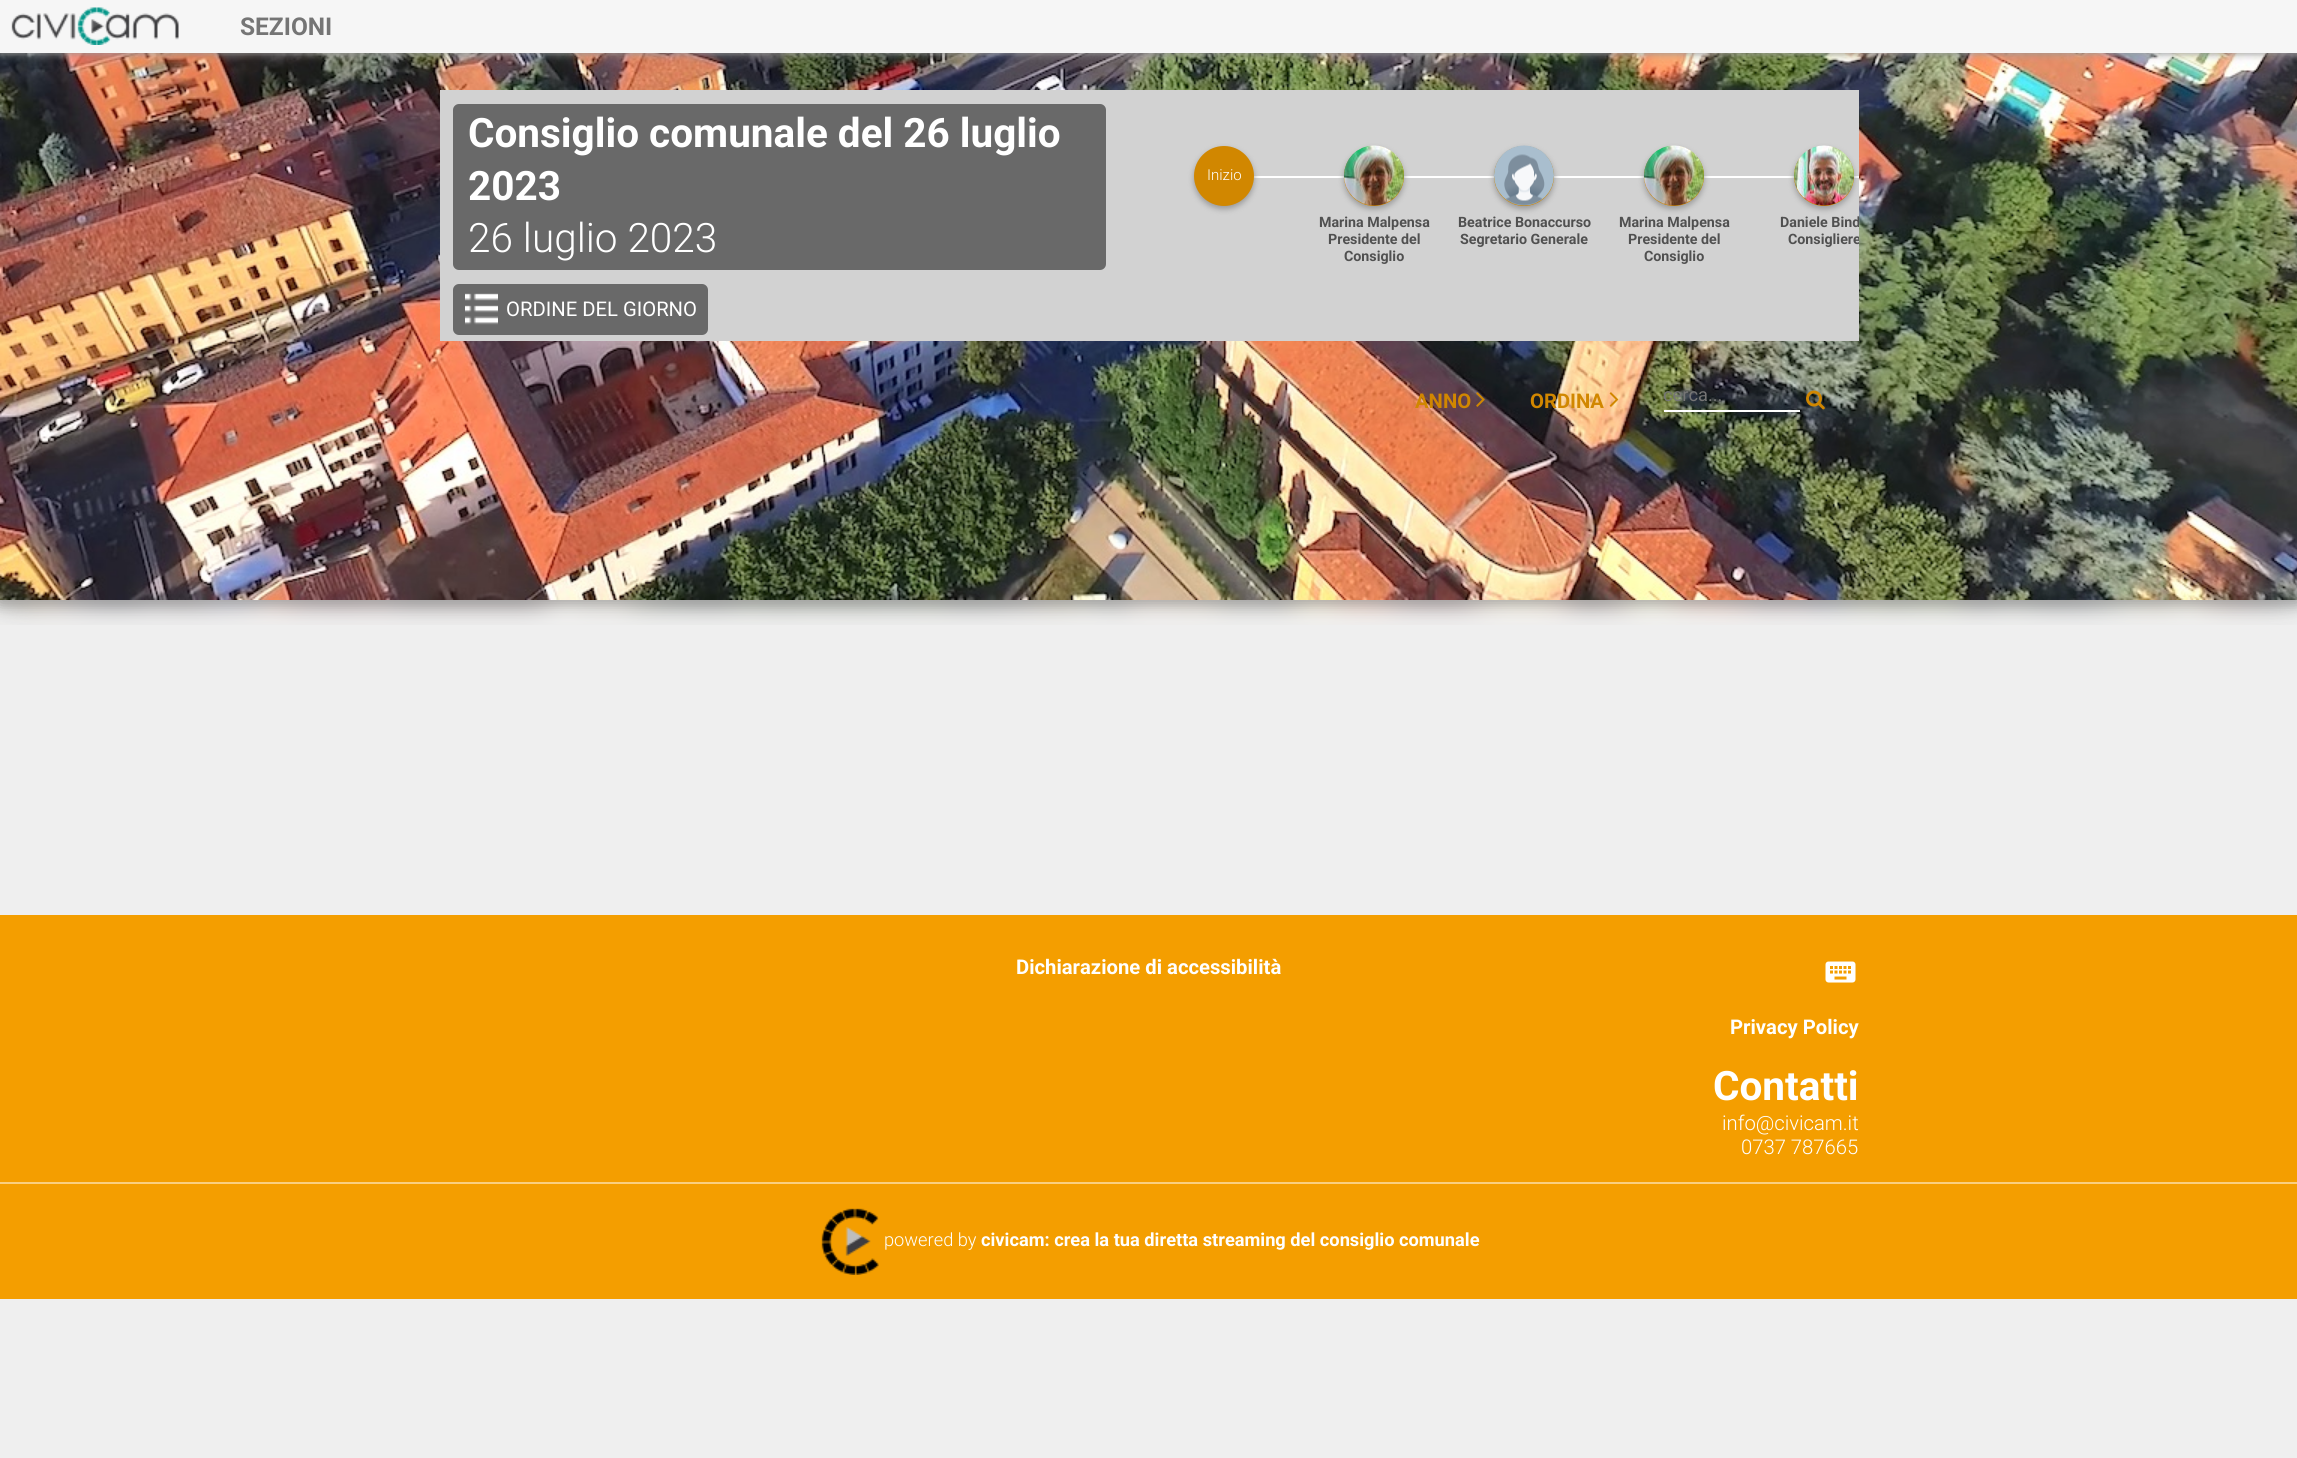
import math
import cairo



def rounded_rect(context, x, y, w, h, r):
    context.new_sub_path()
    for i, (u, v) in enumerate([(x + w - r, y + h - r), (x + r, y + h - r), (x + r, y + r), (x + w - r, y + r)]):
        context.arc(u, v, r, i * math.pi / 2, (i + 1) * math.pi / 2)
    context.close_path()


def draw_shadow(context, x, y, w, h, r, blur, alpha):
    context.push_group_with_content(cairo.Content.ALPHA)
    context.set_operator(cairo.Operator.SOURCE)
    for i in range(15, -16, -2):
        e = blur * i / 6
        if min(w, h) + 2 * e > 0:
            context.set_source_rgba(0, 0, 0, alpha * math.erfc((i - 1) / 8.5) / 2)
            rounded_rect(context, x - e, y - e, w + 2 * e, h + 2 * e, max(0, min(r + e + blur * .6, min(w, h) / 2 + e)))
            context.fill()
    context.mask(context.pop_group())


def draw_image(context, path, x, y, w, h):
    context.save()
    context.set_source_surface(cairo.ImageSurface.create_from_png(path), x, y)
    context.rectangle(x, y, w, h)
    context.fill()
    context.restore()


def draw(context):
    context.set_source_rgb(239 / 255, 239 / 255, 239 / 255)
    context.paint()
    context.set_source_rgb(198 / 255, 198 / 255, 198 / 255)
    draw_shadow(context, 0, 3, 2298, 600, 0, 7, 1)
    draw_image(context, "images/2.png", 0, 600, 2297, 25)
    context.set_source_rgb(170 / 255, 170 / 255, 170 / 255)
    draw_shadow(context, 0, 3, 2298, 600, 0, 7, 1)
    draw_image(context, "images/3.png", 0, 53, 2297, 547)
    context.set_source_rgb(153 / 255, 153 / 255, 153 / 255)
    draw_shadow(context, 0, 2, 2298, 52, 0, 4, 1)
    context.set_source_rgb(246 / 255, 246 / 255, 246 / 255)
    context.rectangle(0, 0, 2297, 53)
    context.fill()
    draw_image(context, "images/1.png", 11, 7, 168, 38)
    context.set_source_rgb(210 / 255, 210 / 255, 210 / 255)
    context.rectangle(440, 90, 1419, 251)
    context.fill()
    context.set_source_rgb(105 / 255, 105 / 255, 105 / 255)
    rounded_rect(context, 453, 104, 653, 166, 6)
    context.fill()
    rounded_rect(context, 453, 284, 255, 51, 6)
    context.fill()
    draw_image(context, "images/4.png", 465, 293, 33, 32)
    context.set_source_rgb(1, 1, 1)
    context.rectangle(1253, 176, 606, 2)
    context.fill()
    context.set_source_rgb(153 / 255, 153 / 255, 153 / 255)
    draw_shadow(context, 1194, 149, 60, 60, 30, 3, 1)
    context.set_source_rgb(209 / 255, 135 / 255, 0)
    context.arc(1224, 176, 30, 0, 2 * math.pi)
    context.fill()
    context.set_source_rgb(153 / 255, 153 / 255, 153 / 255)
    draw_shadow(context, 1344, 149, 60, 60, 30, 3, 1)
    context.set_source_rgb(209 / 255, 135 / 255, 0)
    context.arc(1374, 176, 30, 0, 2 * math.pi)
    context.fill()
    draw_image(context, "images/5.png", 1344, 145, 60, 61)
    context.set_source_rgb(153 / 255, 153 / 255, 153 / 255)
    draw_shadow(context, 1494, 149, 60, 60, 30, 3, 1)
    context.set_source_rgb(209 / 255, 135 / 255, 0)
    context.arc(1524, 176, 30, 0, 2 * math.pi)
    context.fill()
    draw_image(context, "images/6.png", 1494, 145, 60, 61)
    context.set_source_rgb(153 / 255, 153 / 255, 153 / 255)
    draw_shadow(context, 1644, 149, 60, 60, 30, 3, 1)
    context.set_source_rgb(209 / 255, 135 / 255, 0)
    context.arc(1674, 176, 30, 0, 2 * math.pi)
    context.fill()
    draw_image(context, "images/5.png", 1644, 145, 60, 61)
    context.set_source_rgb(153 / 255, 153 / 255, 153 / 255)
    draw_shadow(context, 1794, 149, 60, 60, 30, 3, 1)
    context.set_source_rgb(209 / 255, 135 / 255, 0)
    context.arc(1824, 176, 30, 0, 2 * math.pi)
    context.fill()
    draw_image(context, "images/7.png", 1794, 145, 60, 61)
    draw_image(context, "images/8.png", 1476, 392, 9, 15)
    draw_image(context, "images/9.png", 1609, 392, 10, 15)
    context.set_source_rgb(1, 1, 1)
    context.rectangle(1664, 410, 136, 2)
    context.fill()
    draw_image(context, "images/10.png", 1806, 390, 19, 20)
    context.set_source_rgb(244 / 255, 158 / 255, 0)
    context.rectangle(0, 915, 2297, 384)
    context.fill()
    draw_image(context, "images/11.png", 1825, 961, 31, 22)
    context.set_source_rgb(250 / 255, 207 / 255, 128 / 255)
    context.rectangle(0, 1182, 2297, 2)
    context.fill()
    draw_image(context, "images/12.png", 821, 1208, 58, 67)
    context.select_font_face("Roboto", cairo.FontSlant.NORMAL, cairo.FontWeight.BOLD)
    context.set_font_size(24.5)
    context.set_source_rgb(117 / 255, 117 / 255, 117 / 255)
    context.move_to(240, 35)
    context.show_text("SEZIONI")
    context.set_font_size(40.5)
    context.set_source_rgb(1, 1, 1)
    context.move_to(468, 147)
    context.show_text("Consiglio comunale del 26 luglio")
    context.move_to(468, 200)
    context.show_text("2023")
    context.select_font_face("Roboto Light")
    context.move_to(468, 252)
    context.show_text("26 luglio 2023")
    context.select_font_face("Roboto")
    context.set_font_size(20.25)
    context.move_to(506, 316)
    context.show_text("ORDINE DEL GIORNO")
    context.select_font_face("Roboto Light")
    context.set_font_size(15)
    context.move_to(1207, 180)
    context.show_text("Inizio")
    context.select_font_face("Roboto", cairo.FontSlant.NORMAL, cairo.FontWeight.BOLD)
    context.set_font_size(14.25)
    context.set_source_rgb(80 / 255, 80 / 255, 80 / 255)
    context.move_to(1319, 227)
    context.show_text("Marina Malpensa")
    context.move_to(1328, 244)
    context.show_text("Presidente del")
    context.move_to(1344, 261)
    context.show_text("Consiglio")
    context.move_to(1458, 227)
    context.show_text("Beatrice Bonaccurso")
    context.move_to(1460, 244)
    context.show_text("Segretario Generale")
    context.move_to(1619, 227)
    context.show_text("Marina Malpensa")
    context.move_to(1628, 244)
    context.show_text("Presidente del")
    context.move_to(1644, 261)
    context.show_text("Consiglio")
    context.save()
    context.rectangle(1749, 213, 110, 68)
    context.clip()
    context.move_to(1780, 227)
    context.show_text("Daniele Bind")
    context.move_to(1788, 244)
    context.show_text("Consigliere")
    context.restore()
    context.set_font_size(20.25)
    context.set_source_rgb(209 / 255, 135 / 255, 0)
    context.move_to(1415, 408)
    context.show_text("ANNO")
    context.move_to(1530, 408)
    context.show_text("ORDINA")
    context.select_font_face("Roboto")
    context.set_font_size(18.25)
    context.set_source_rgb(117 / 255, 117 / 255, 117 / 255)
    context.move_to(1663, 401)
    context.show_text("cerca...")
    context.select_font_face("Roboto", cairo.FontSlant.NORMAL, cairo.FontWeight.BOLD)
    context.set_font_size(20.25)
    context.set_source_rgb(1, 1, 1)
    context.move_to(1016, 974)
    context.show_text("Dichiarazione di accessibilità")
    context.move_to(1730, 1034)
    context.show_text("Privacy Policy")
    context.set_font_size(40.5)
    context.move_to(1713, 1100)
    context.show_text("Contatti")
    context.select_font_face("Roboto Light")
    context.set_font_size(20.25)
    context.move_to(1722, 1130)
    context.show_text("info@civicam.it")
    context.move_to(1741, 1154)
    context.show_text("0737 787665")
    context.set_font_size(18.25)
    context.move_to(884, 1246)
    context.show_text("powered by")
    context.select_font_face("Roboto", cairo.FontSlant.NORMAL, cairo.FontWeight.BOLD)
    context.move_to(981, 1246)
    context.show_text("civicam: crea la tua diretta streaming del consiglio comunale")


surface = cairo.ImageSurface(cairo.Format.RGB24, 2297, 1458)
context = cairo.Context(surface)
options = cairo.FontOptions()
options.set_hint_metrics(cairo.HintMetrics.OFF)
options.set_hint_style(cairo.HintStyle.NONE)
context.set_font_options(options)
context.set_miter_limit(4)
draw(context)
surface.write_to_png("out.png")
